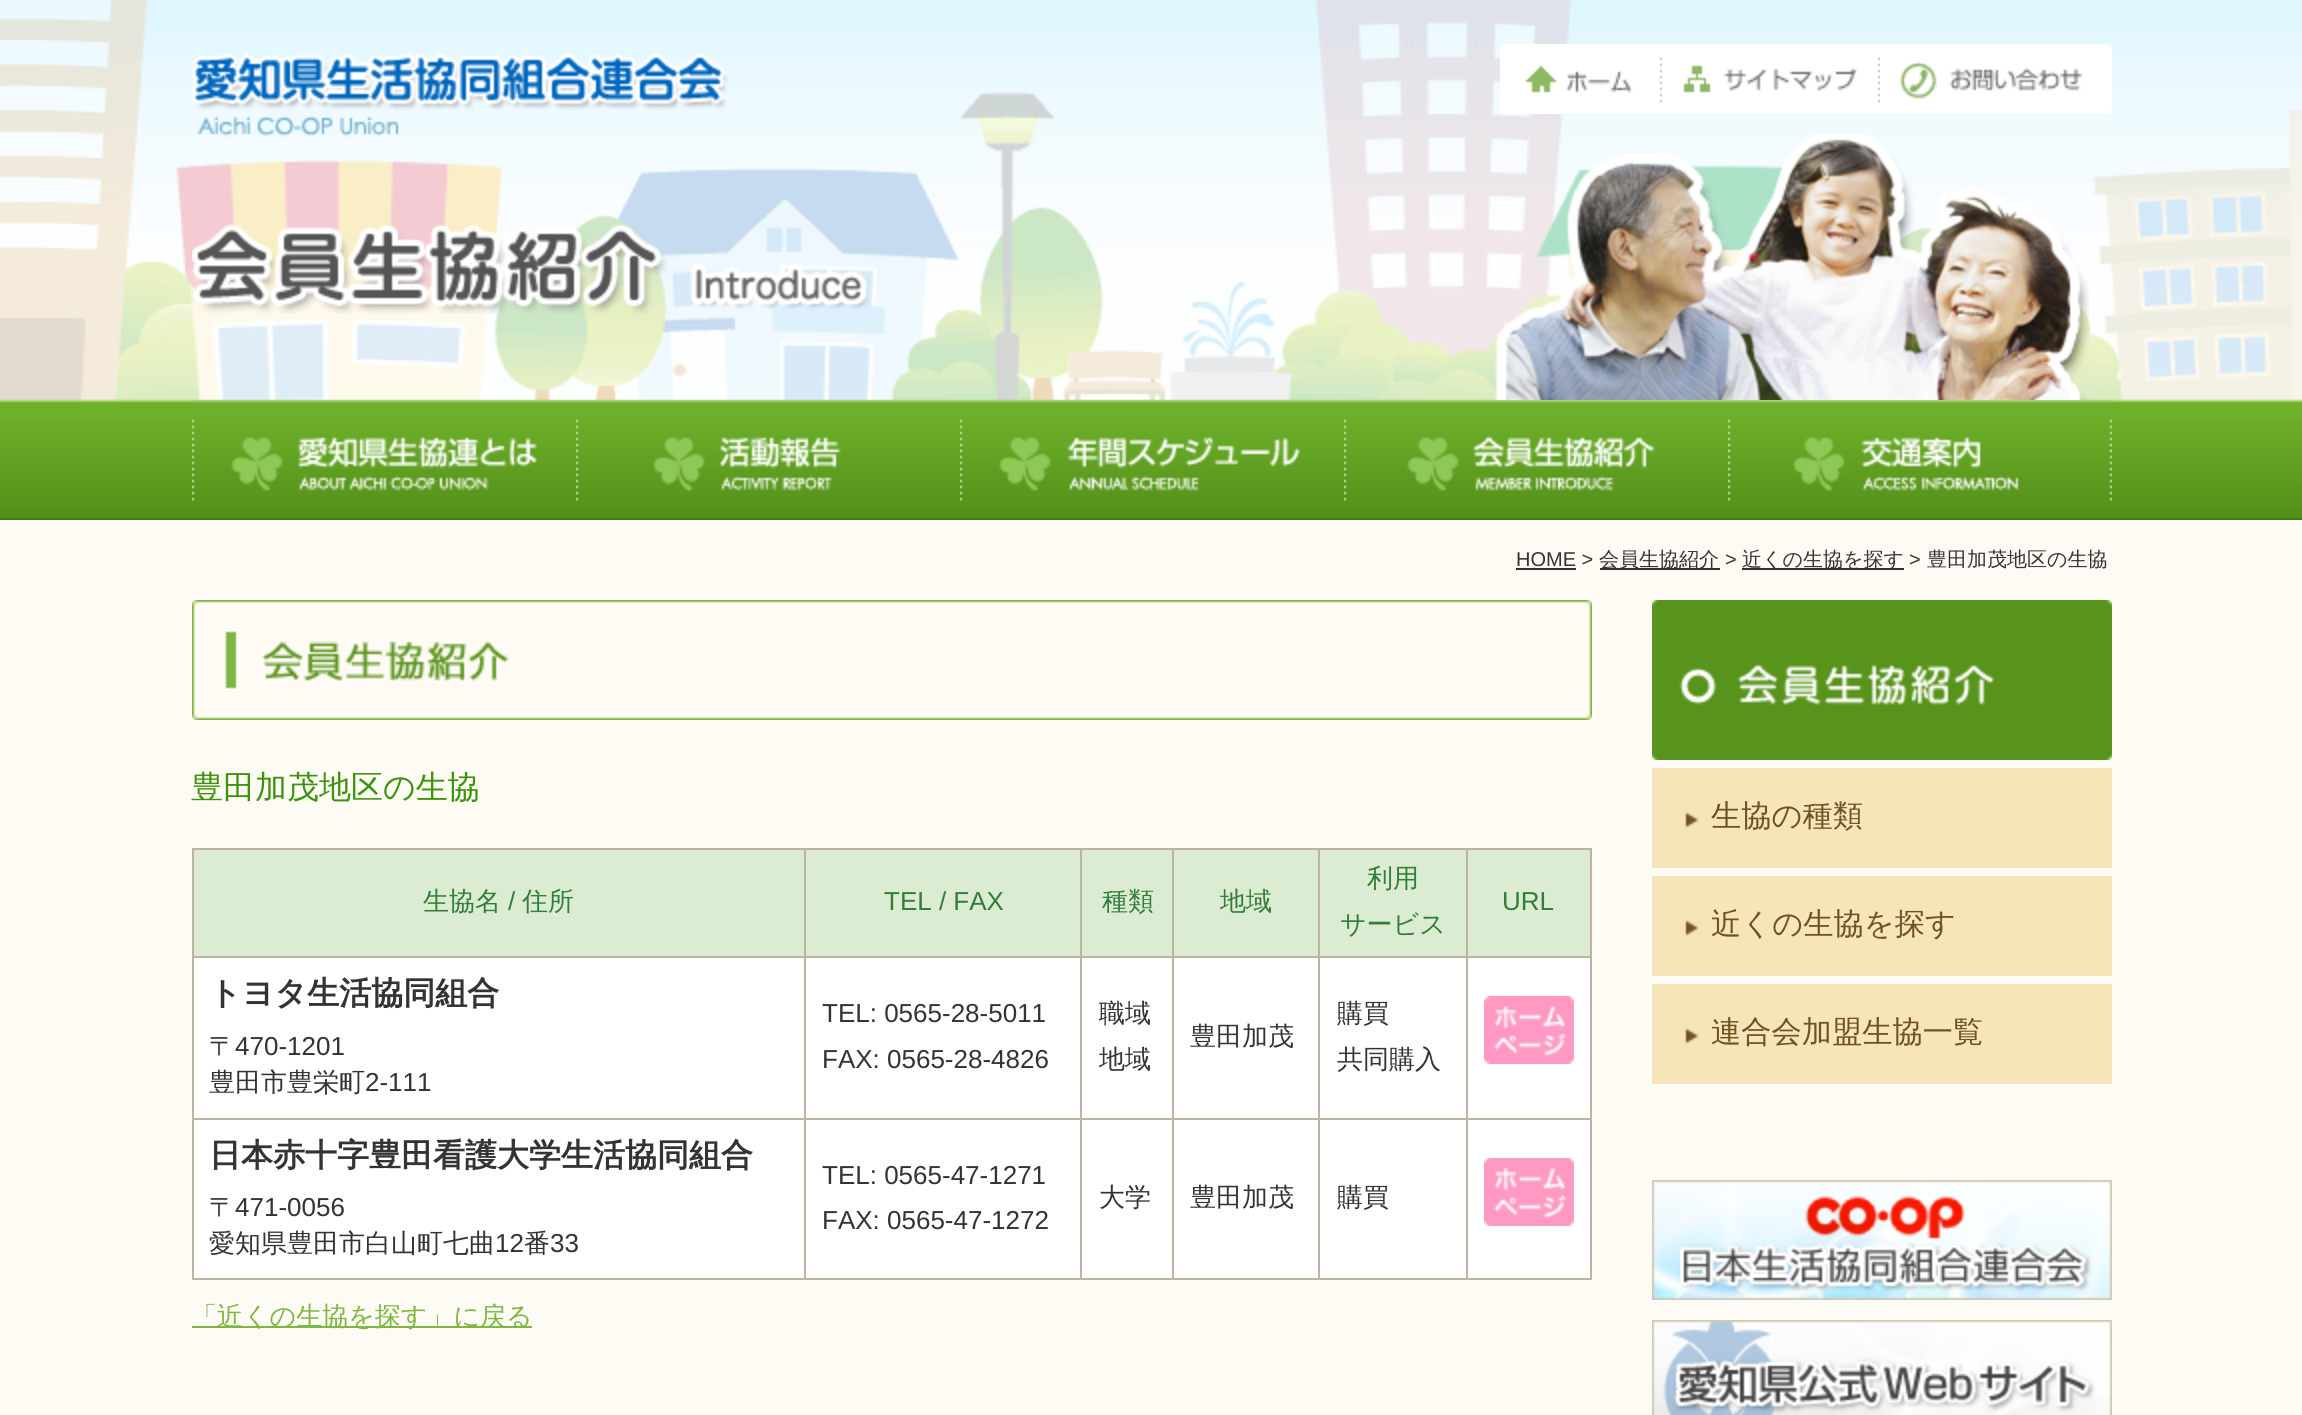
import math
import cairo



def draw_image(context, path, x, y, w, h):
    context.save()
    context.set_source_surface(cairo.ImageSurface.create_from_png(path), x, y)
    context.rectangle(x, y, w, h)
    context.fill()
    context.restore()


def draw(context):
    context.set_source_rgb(254 / 255, 251 / 255, 244 / 255)
    context.paint()
    draw_image(context, "images/1.png", 0, 0, 2302, 520)
    draw_image(context, "images/2.png", 192, 53, 536, 84)
    draw_image(context, "images/3.png", 1500, 44, 162, 70)
    draw_image(context, "images/4.png", 1662, 44, 218, 70)
    draw_image(context, "images/5.png", 1880, 44, 232, 70)
    draw_image(context, "images/6.png", 192, 223, 676, 91)
    draw_image(context, "images/7.png", 1495, 134, 594, 266)
    draw_image(context, "images/8.png", 192, 400, 384, 101)
    draw_image(context, "images/9.png", 576, 400, 384, 101)
    draw_image(context, "images/10.png", 960, 400, 384, 101)
    draw_image(context, "images/11.png", 1344, 400, 384, 101)
    draw_image(context, "images/12.png", 1728, 400, 384, 101)
    draw_image(context, "images/13.png", 192, 600, 1400, 120)
    context.set_source_rgb(188 / 255, 179 / 255, 161 / 255)
    context.rectangle(1590, 848, 2, 432)
    context.fill()
    context.rectangle(192, 1278, 1400, 2)
    context.fill()
    context.set_source_rgb(219 / 255, 236 / 255, 211 / 255)
    context.rectangle(194, 850, 610, 106)
    context.fill()
    context.set_source_rgb(188 / 255, 179 / 255, 161 / 255)
    context.rectangle(192, 848, 1398, 2)
    context.fill()
    context.rectangle(192, 848, 2, 108)
    context.fill()
    context.set_source_rgb(219 / 255, 236 / 255, 211 / 255)
    context.rectangle(806, 850, 274, 106)
    context.fill()
    context.set_source_rgb(188 / 255, 179 / 255, 161 / 255)
    context.rectangle(804, 848, 2, 108)
    context.fill()
    context.set_source_rgb(219 / 255, 236 / 255, 211 / 255)
    context.rectangle(1082, 850, 90, 106)
    context.fill()
    context.set_source_rgb(188 / 255, 179 / 255, 161 / 255)
    context.rectangle(1080, 848, 2, 108)
    context.fill()
    context.set_source_rgb(219 / 255, 236 / 255, 211 / 255)
    context.rectangle(1174, 850, 144, 106)
    context.fill()
    context.set_source_rgb(188 / 255, 179 / 255, 161 / 255)
    context.rectangle(1172, 848, 2, 108)
    context.fill()
    context.set_source_rgb(219 / 255, 236 / 255, 211 / 255)
    context.rectangle(1320, 850, 146, 106)
    context.fill()
    context.set_source_rgb(188 / 255, 179 / 255, 161 / 255)
    context.rectangle(1318, 848, 2, 108)
    context.fill()
    context.set_source_rgb(219 / 255, 236 / 255, 211 / 255)
    context.rectangle(1468, 850, 122, 106)
    context.fill()
    context.set_source_rgb(188 / 255, 179 / 255, 161 / 255)
    context.rectangle(1466, 848, 2, 108)
    context.fill()
    context.set_source_rgb(1, 1, 1)
    context.rectangle(194, 958, 610, 160)
    context.fill()
    context.set_source_rgb(188 / 255, 179 / 255, 161 / 255)
    context.rectangle(192, 956, 1398, 2)
    context.fill()
    context.rectangle(192, 956, 2, 162)
    context.fill()
    context.set_source_rgb(1, 1, 1)
    context.rectangle(1468, 958, 122, 160)
    context.fill()
    context.set_source_rgb(188 / 255, 179 / 255, 161 / 255)
    context.rectangle(1466, 956, 2, 162)
    context.fill()
    draw_image(context, "images/14.png", 1484, 996, 90, 68)
    context.set_source_rgb(1, 1, 1)
    context.rectangle(806, 958, 274, 160)
    context.fill()
    context.set_source_rgb(188 / 255, 179 / 255, 161 / 255)
    context.rectangle(804, 956, 2, 162)
    context.fill()
    context.set_source_rgb(1, 1, 1)
    context.rectangle(1082, 958, 90, 160)
    context.fill()
    context.set_source_rgb(188 / 255, 179 / 255, 161 / 255)
    context.rectangle(1080, 956, 2, 162)
    context.fill()
    context.set_source_rgb(1, 1, 1)
    context.rectangle(1174, 958, 144, 160)
    context.fill()
    context.set_source_rgb(188 / 255, 179 / 255, 161 / 255)
    context.rectangle(1172, 956, 2, 162)
    context.fill()
    context.set_source_rgb(1, 1, 1)
    context.rectangle(1320, 958, 146, 160)
    context.fill()
    context.set_source_rgb(188 / 255, 179 / 255, 161 / 255)
    context.rectangle(1318, 956, 2, 162)
    context.fill()
    context.set_source_rgb(1, 1, 1)
    context.rectangle(194, 1120, 610, 158)
    context.fill()
    context.set_source_rgb(188 / 255, 179 / 255, 161 / 255)
    context.rectangle(192, 1118, 1398, 2)
    context.fill()
    context.rectangle(192, 1118, 2, 160)
    context.fill()
    context.set_source_rgb(1, 1, 1)
    context.rectangle(1468, 1120, 122, 158)
    context.fill()
    context.set_source_rgb(188 / 255, 179 / 255, 161 / 255)
    context.rectangle(1466, 1118, 2, 160)
    context.fill()
    draw_image(context, "images/14.png", 1484, 1158, 90, 68)
    context.set_source_rgb(1, 1, 1)
    context.rectangle(806, 1120, 274, 158)
    context.fill()
    context.set_source_rgb(188 / 255, 179 / 255, 161 / 255)
    context.rectangle(804, 1118, 2, 160)
    context.fill()
    context.set_source_rgb(1, 1, 1)
    context.rectangle(1082, 1120, 90, 158)
    context.fill()
    context.set_source_rgb(188 / 255, 179 / 255, 161 / 255)
    context.rectangle(1080, 1118, 2, 160)
    context.fill()
    context.set_source_rgb(1, 1, 1)
    context.rectangle(1174, 1120, 144, 158)
    context.fill()
    context.set_source_rgb(188 / 255, 179 / 255, 161 / 255)
    context.rectangle(1172, 1118, 2, 160)
    context.fill()
    context.set_source_rgb(1, 1, 1)
    context.rectangle(1320, 1120, 146, 158)
    context.fill()
    context.set_source_rgb(188 / 255, 179 / 255, 161 / 255)
    context.rectangle(1318, 1118, 2, 160)
    context.fill()
    context.set_source_rgb(125 / 255, 183 / 255, 67 / 255)
    context.rectangle(192, 1326, 340, 2)
    context.fill()
    context.set_source_rgb(51 / 255, 51 / 255, 51 / 255)
    context.rectangle(1516, 568, 60, 2)
    context.fill()
    context.rectangle(1600, 568, 120, 2)
    context.fill()
    context.rectangle(1742, 568, 162, 2)
    context.fill()
    draw_image(context, "images/15.png", 1652, 600, 460, 160)
    draw_image(context, "images/16.png", 1652, 768, 460, 100)
    draw_image(context, "images/16.png", 1652, 876, 460, 100)
    draw_image(context, "images/16.png", 1652, 984, 460, 100)
    draw_image(context, "images/17.png", 1652, 1180, 460, 120)
    draw_image(context, "images/18.png", 1652, 1320, 460, 95)
    context.select_font_face("WenQuanYi Zen Hei Medium")
    context.set_font_size(32)
    context.set_source_rgb(58 / 255, 147 / 255, 10 / 255)
    context.move_to(191, 798)
    context.show_text("豊田加茂地区の生協")
    context.set_font_size(26)
    context.set_source_rgb(49 / 255, 125 / 255, 58 / 255)
    context.move_to(423, 910)
    context.show_text("生協名")
    context.select_font_face("Liberation Sans")
    context.move_to(508, 910)
    context.show_text("/")
    context.select_font_face("WenQuanYi Zen Hei Medium")
    context.move_to(522, 910)
    context.show_text("住所")
    context.select_font_face("Liberation Sans")
    context.move_to(884, 910)
    context.show_text("TEL / FAX")
    context.select_font_face("WenQuanYi Zen Hei Medium")
    context.move_to(1102, 910)
    context.show_text("種類")
    context.move_to(1220, 910)
    context.show_text("地域")
    context.move_to(1367, 887)
    context.show_text("利用")
    context.move_to(1340, 933)
    context.show_text("サービス")
    context.select_font_face("Liberation Sans")
    context.move_to(1502, 910)
    context.show_text("URL")
    context.select_font_face("WenQuanYi Zen Hei", cairo.FontSlant.NORMAL, cairo.FontWeight.BOLD)
    context.set_font_size(32)
    context.set_source_rgb(51 / 255, 51 / 255, 51 / 255)
    context.move_to(209, 1004)
    context.show_text("トヨタ生活協同組合")
    context.select_font_face("Liberation Sans")
    context.set_font_size(26)
    context.move_to(822, 1022)
    context.show_text("TEL: 0565-28-5011")
    context.move_to(822, 1068)
    context.show_text("FAX: 0565-28-4826")
    context.select_font_face("WenQuanYi Zen Hei Medium")
    context.move_to(1099, 1022)
    context.show_text("職域")
    context.move_to(1099, 1068)
    context.show_text("地域")
    context.move_to(1190, 1045)
    context.show_text("豊田加茂")
    context.move_to(1337, 1022)
    context.show_text("購買")
    context.move_to(1337, 1068)
    context.show_text("共同購入")
    context.move_to(209, 1055)
    context.show_text("〒")
    context.select_font_face("Liberation Sans")
    context.move_to(235, 1055)
    context.show_text("470-1201")
    context.select_font_face("WenQuanYi Zen Hei Medium")
    context.move_to(209, 1091)
    context.show_text("豊田市豊栄町")
    context.select_font_face("Liberation Sans")
    context.move_to(365, 1091)
    context.show_text("2-111")
    context.select_font_face("WenQuanYi Zen Hei", cairo.FontSlant.NORMAL, cairo.FontWeight.BOLD)
    context.set_font_size(32)
    context.move_to(209, 1166)
    context.show_text("日本赤十字豊田看護大学生活協同組合")
    context.select_font_face("Liberation Sans")
    context.set_font_size(26)
    context.move_to(822, 1184)
    context.show_text("TEL: 0565-47-1271")
    context.move_to(822, 1229)
    context.show_text("FAX: 0565-47-1272")
    context.select_font_face("WenQuanYi Zen Hei Medium")
    context.move_to(1099, 1206)
    context.show_text("大学")
    context.move_to(1190, 1206)
    context.show_text("豊田加茂")
    context.move_to(1337, 1206)
    context.show_text("購買")
    context.move_to(209, 1216)
    context.show_text("〒")
    context.select_font_face("Liberation Sans")
    context.move_to(235, 1216)
    context.show_text("471-0056")
    context.select_font_face("WenQuanYi Zen Hei Medium")
    context.move_to(209, 1252)
    context.show_text("愛知県豊田市白山町七曲")
    context.select_font_face("Liberation Sans")
    context.move_to(495, 1252)
    context.show_text("12")
    context.select_font_face("WenQuanYi Zen Hei Medium")
    context.move_to(524, 1252)
    context.show_text("番")
    context.select_font_face("Liberation Sans")
    context.move_to(550, 1252)
    context.show_text("33")
    context.select_font_face("WenQuanYi Zen Hei Medium")
    context.set_source_rgb(125 / 255, 183 / 255, 67 / 255)
    context.move_to(191, 1325)
    context.show_text("「近くの生協を探す」に戻る")
    context.select_font_face("Liberation Sans")
    context.set_font_size(20)
    context.set_source_rgb(51 / 255, 51 / 255, 51 / 255)
    context.move_to(1516, 566)
    context.show_text("HOME >")
    context.select_font_face("WenQuanYi Zen Hei Medium")
    context.move_to(1599, 566)
    context.show_text("会員生協紹介")
    context.select_font_face("Liberation Sans")
    context.move_to(1725, 566)
    context.show_text(">")
    context.select_font_face("WenQuanYi Zen Hei Medium")
    context.move_to(1742, 566)
    context.show_text("近くの生協を探す")
    context.select_font_face("Liberation Sans")
    context.move_to(1909, 566)
    context.show_text(">")
    context.select_font_face("WenQuanYi Zen Hei Medium")
    context.move_to(1927, 566)
    context.show_text("豊田加茂地区の生協")
    context.set_font_size(30.25)
    context.set_source_rgb(111 / 255, 82 / 255, 32 / 255)
    context.move_to(1711, 826)
    context.show_text("生協の種類")
    context.move_to(1711, 934)
    context.show_text("近くの生協を探す")
    context.move_to(1711, 1042)
    context.show_text("連合会加盟生協一覧")


surface = cairo.ImageSurface(cairo.Format.RGB24, 2302, 1415)
context = cairo.Context(surface)
options = cairo.FontOptions()
options.set_hint_metrics(cairo.HintMetrics.OFF)
options.set_hint_style(cairo.HintStyle.NONE)
context.set_font_options(options)
context.set_miter_limit(4)
draw(context)
surface.write_to_png("out.png")
